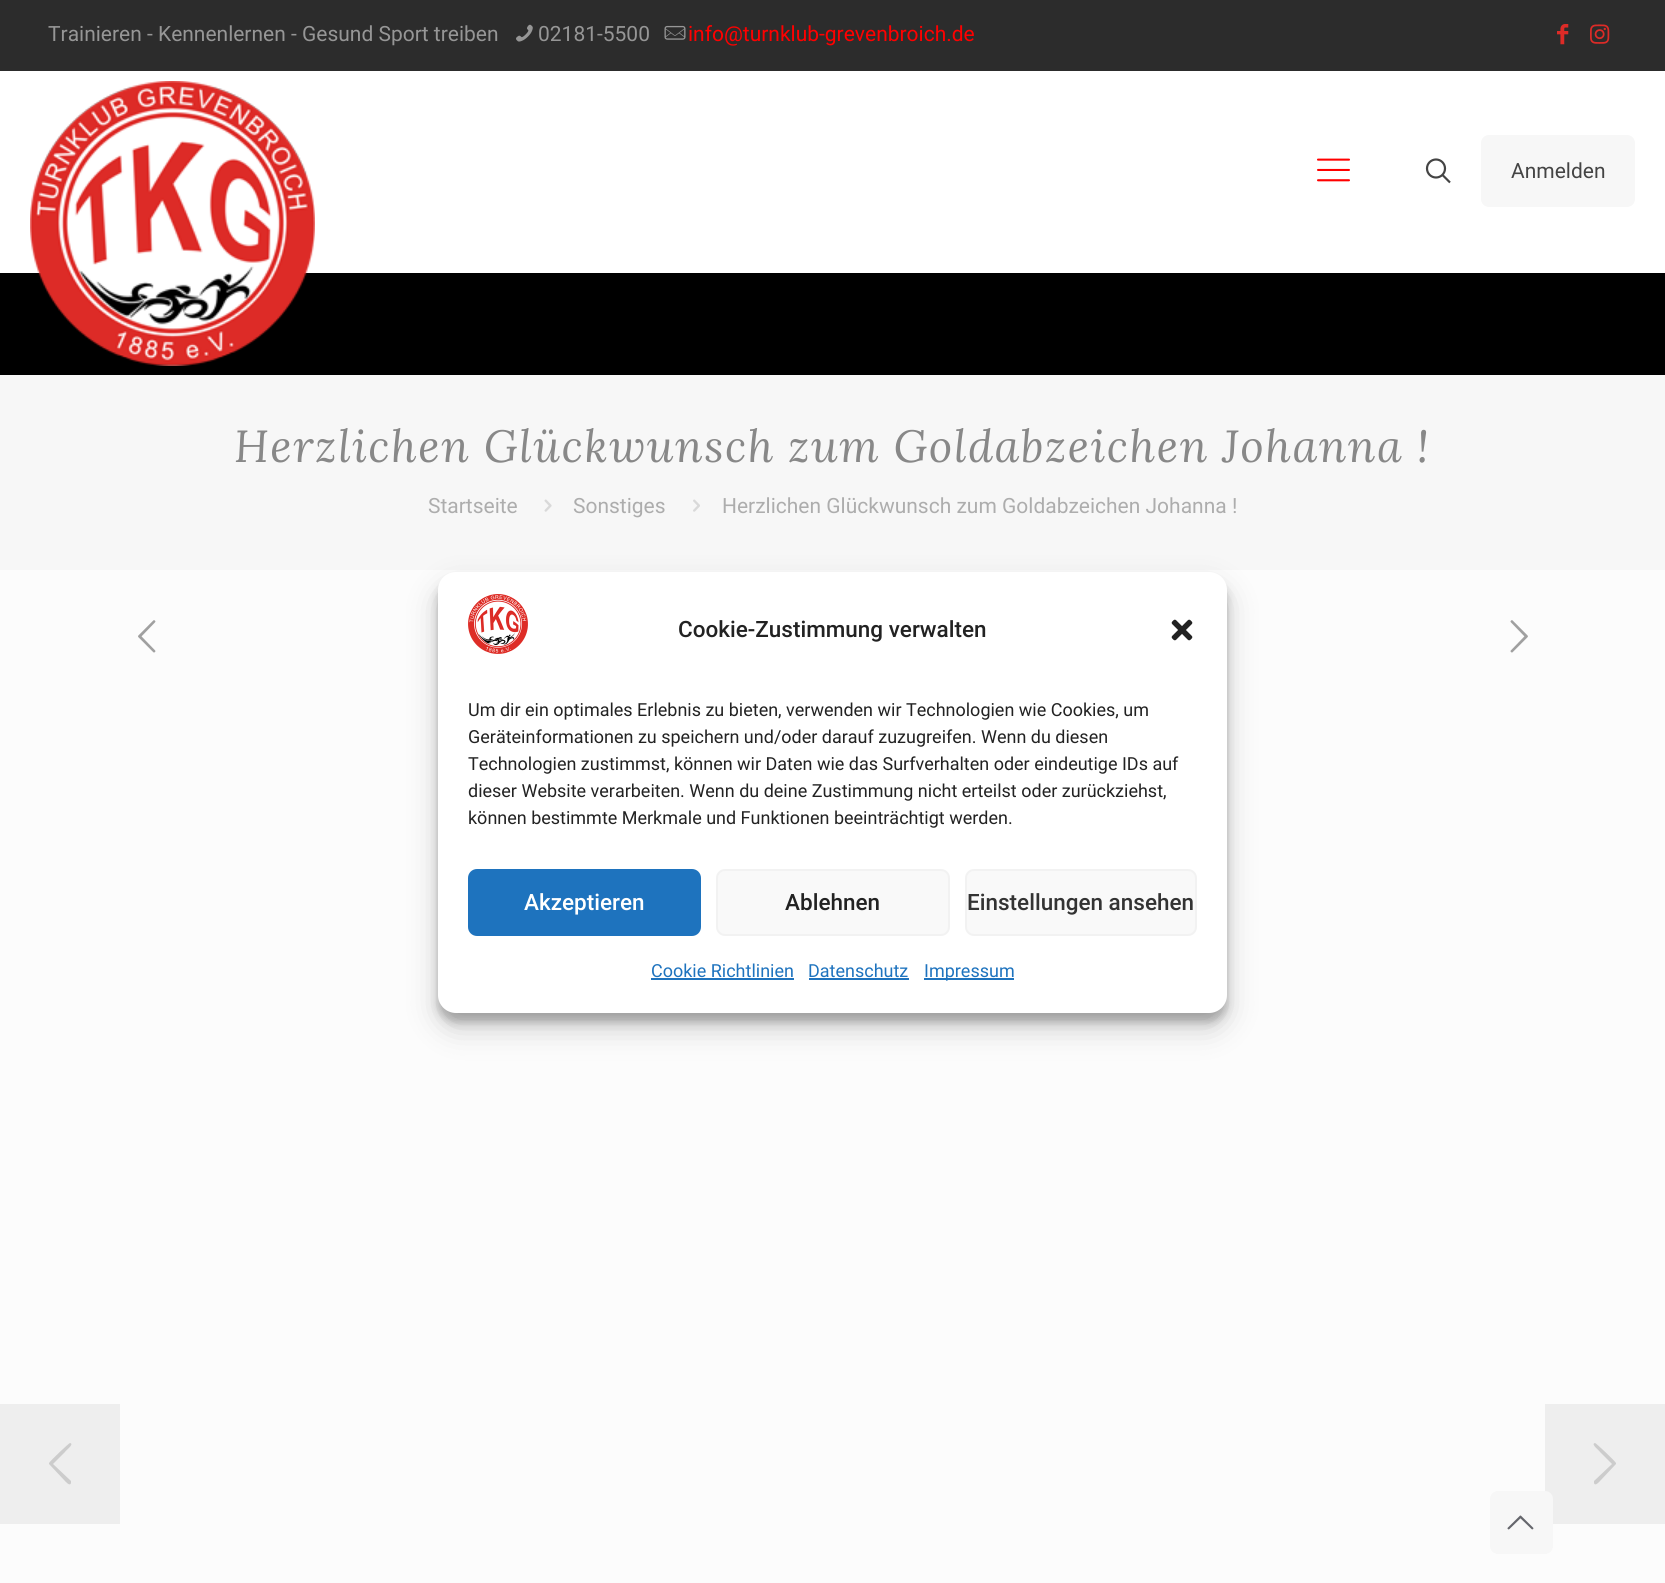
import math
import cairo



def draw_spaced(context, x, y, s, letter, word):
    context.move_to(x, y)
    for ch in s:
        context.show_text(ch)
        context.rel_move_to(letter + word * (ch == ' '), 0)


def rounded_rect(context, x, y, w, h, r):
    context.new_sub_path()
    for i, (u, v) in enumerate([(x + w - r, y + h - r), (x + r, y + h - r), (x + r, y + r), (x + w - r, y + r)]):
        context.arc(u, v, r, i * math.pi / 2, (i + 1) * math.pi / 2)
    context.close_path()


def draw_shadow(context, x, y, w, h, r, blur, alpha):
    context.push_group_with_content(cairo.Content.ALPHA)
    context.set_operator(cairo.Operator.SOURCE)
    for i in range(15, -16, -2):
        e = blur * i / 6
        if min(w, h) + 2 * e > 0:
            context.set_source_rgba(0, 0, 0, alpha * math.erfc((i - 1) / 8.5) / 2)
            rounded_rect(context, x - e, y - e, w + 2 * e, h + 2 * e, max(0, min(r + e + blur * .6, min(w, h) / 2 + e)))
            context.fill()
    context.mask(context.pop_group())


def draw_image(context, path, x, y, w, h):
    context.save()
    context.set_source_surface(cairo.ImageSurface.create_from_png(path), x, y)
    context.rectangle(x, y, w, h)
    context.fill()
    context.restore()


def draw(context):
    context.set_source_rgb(252 / 255, 252 / 255, 252 / 255)
    context.paint()
    context.set_source_rgb(0, 0, 0)
    context.rectangle(0, 273, 1665, 102)
    context.fill()
    context.set_source_rgb(44 / 255, 44 / 255, 44 / 255)
    context.rectangle(0, 0, 1665, 71)
    context.fill()
    draw_image(context, "images/1.png", 516, 24, 17, 18)
    draw_image(context, "images/2.png", 664, 25, 22, 15)
    draw_image(context, "images/3.png", 1557, 24, 12, 21)
    draw_image(context, "images/4.png", 1590, 24, 20, 20)
    context.set_source_rgb(1, 1, 1)
    context.rectangle(0, 71, 1665, 202)
    context.fill()
    draw_image(context, "images/5.png", 30, 81, 285, 285)
    draw_image(context, "images/6.png", 1317, 158, 33, 24)
    context.arc(1436, 168.5, 9, 0, 2 * math.pi)
    context.set_source_rgb(68 / 255, 68 / 255, 68 / 255)
    context.set_line_width(2.2)
    context.stroke()
    context.new_path()
    context.move_to(1442.5, 175)
    context.line_to(1450, 182.5)
    context.stroke()
    context.set_source_rgb(247 / 255, 247 / 255, 247 / 255)
    rounded_rect(context, 1481, 135, 154, 72, 8)
    context.fill()
    context.rectangle(0, 375, 1665, 195)
    context.fill()
    draw_image(context, "images/7.png", 544, 499, 8, 13)
    draw_image(context, "images/8.png", 693, 499, 7, 13)
    draw_image(context, "images/9.png", 138, 620, 18, 33)
    draw_image(context, "images/10.png", 1510, 620, 18, 33)
    context.set_source_rgb(0, 0, 0)
    draw_shadow(context, 438, 581, 789, 441, 18, 4.5, 0.23)
    draw_shadow(context, 438, 587, 789, 441, 18, 15, 0.19)
    context.set_source_rgb(1, 1, 1)
    rounded_rect(context, 438, 572, 789, 441, 18)
    context.fill()
    draw_image(context, "images/11.png", 468, 594, 60, 60)
    draw_image(context, "images/12.png", 1171, 619, 22, 22)
    context.set_source_rgb(30 / 255, 115 / 255, 190 / 255)
    rounded_rect(context, 469, 870, 231, 65, 8)
    context.fill_preserve()
    context.set_line_width(2)
    context.stroke()
    context.set_source_rgb(249 / 255, 249 / 255, 249 / 255)
    rounded_rect(context, 717, 870, 232, 65, 8)
    context.fill_preserve()
    context.set_source_rgb(242 / 255, 242 / 255, 242 / 255)
    context.stroke()
    context.set_source_rgb(249 / 255, 249 / 255, 249 / 255)
    rounded_rect(context, 966, 870, 230, 65, 8)
    context.fill_preserve()
    context.set_source_rgb(242 / 255, 242 / 255, 242 / 255)
    context.stroke()
    context.set_source_rgb(30 / 255, 115 / 255, 190 / 255)
    context.rectangle(651, 978, 143, 2)
    context.fill()
    context.rectangle(809, 978, 100, 2)
    context.fill()
    context.rectangle(924, 978, 90, 2)
    context.fill()
    context.set_source_rgb(238 / 255, 238 / 255, 238 / 255)
    context.rectangle(0, 1404, 120, 120)
    context.fill()
    context.set_source_rgb(204 / 255, 204 / 255, 204 / 255)
    context.new_path()
    context.move_to(71, 1481)
    context.line_to(71, 1483)
    context.curve_to(70, 1487, 65, 1481, 65, 1481)
    context.line_to(49, 1464)
    context.line_to(49, 1463)
    context.curve_to(51, 1460, 69, 1443, 70, 1443)
    context.curve_to(75, 1444, 65, 1451, 65, 1452)
    context.line_to(53, 1464)
    context.close_path()
    context.fill()
    context.set_source_rgb(238 / 255, 238 / 255, 238 / 255)
    context.rectangle(1545, 1404, 120, 120)
    context.fill()
    context.set_source_rgb(247 / 255, 247 / 255, 247 / 255)
    rounded_rect(context, 1490, 1491, 63, 63, 8)
    context.fill()
    draw_image(context, "images/13.png", 1507, 1515, 27, 15)
    context.set_source_rgb(204 / 255, 204 / 255, 204 / 255)
    context.new_path()
    context.move_to(1594, 1481)
    context.line_to(1612, 1464)
    context.line_to(1600, 1452)
    context.curve_to(1600, 1451, 1590, 1444, 1595, 1443)
    context.curve_to(1596, 1443, 1614, 1460, 1616, 1463)
    context.line_to(1616, 1464)
    context.line_to(1600, 1481)
    context.curve_to(1600, 1481, 1595, 1487, 1594, 1483)
    context.close_path()
    context.fill()
    context.select_font_face("Roboto")
    context.set_font_size(21)
    context.set_source_rgb(150 / 255, 150 / 255, 150 / 255)
    context.move_to(48, 41)
    context.show_text("Trainieren - Kennenlernen - Gesund Sport treiben")
    context.move_to(538, 41)
    context.show_text("02181-5500")
    context.set_source_rgb(1, 0, 0)
    context.move_to(688, 41)
    context.show_text("info@turnklub-grevenbroich.de")
    context.set_source_rgb(68 / 255, 68 / 255, 68 / 255)
    context.move_to(1511, 178)
    context.show_text("Anmelden")
    context.select_font_face("Lora", cairo.FontSlant.ITALIC)
    context.set_font_size(45)
    context.set_source_rgb(136 / 255, 136 / 255, 136 / 255)
    draw_spaced(context, 234, 462, "Herzlichen Glückwunsch zum Goldabzeichen Johanna !", 1.5, 0)
    context.select_font_face("Roboto")
    context.set_font_size(21)
    context.set_source_rgb(173 / 255, 173 / 255, 173 / 255)
    context.move_to(428, 513)
    context.show_text("Startseite")
    context.move_to(573, 513)
    context.show_text("Sonstiges")
    context.move_to(722, 513)
    context.show_text("Herzlichen Glückwunsch zum Goldabzeichen Johanna !")
    context.select_font_face("Roboto Medium")
    context.set_font_size(22.5)
    context.set_source_rgb(34 / 255, 34 / 255, 34 / 255)
    context.move_to(678, 637)
    context.show_text("Cookie-Zustimmung verwalten")
    context.select_font_face("Roboto")
    context.set_font_size(18)
    context.move_to(468, 716)
    context.show_text("Um dir ein optimales Erlebnis zu bieten, verwenden wir Technologien wie Cookies, um")
    context.move_to(468, 743)
    context.show_text("Geräteinformationen zu speichern und/oder darauf zuzugreifen. Wenn du diesen")
    context.move_to(468, 770)
    context.show_text("Technologien zustimmst, können wir Daten wie das Surfverhalten oder eindeutige IDs auf")
    context.move_to(468, 797)
    context.show_text("dieser Website verarbeiten. Wenn du deine Zustimmung nicht erteilst oder zurückziehst,")
    context.move_to(468, 824)
    context.show_text("können bestimmte Merkmale und Funktionen beeinträchtigt werden.")
    context.select_font_face("Roboto Medium")
    context.set_font_size(22.5)
    context.set_source_rgb(1, 1, 1)
    context.move_to(524, 910)
    context.show_text("Akzeptieren")
    context.set_source_rgb(34 / 255, 34 / 255, 34 / 255)
    context.move_to(785, 910)
    context.show_text("Ablehnen")
    context.set_source_rgb(51 / 255, 51 / 255, 51 / 255)
    context.move_to(967, 910)
    context.show_text("Einstellungen ansehen")
    context.select_font_face("Roboto")
    context.set_font_size(18)
    context.set_source_rgb(30 / 255, 115 / 255, 190 / 255)
    context.move_to(651, 977)
    context.show_text("Cookie Richtlinien")
    context.move_to(808, 977)
    context.show_text("Datenschutz")
    context.move_to(924, 977)
    context.show_text("Impressum")


surface = cairo.ImageSurface(cairo.Format.RGB24, 1665, 1583)
context = cairo.Context(surface)
options = cairo.FontOptions()
options.set_hint_metrics(cairo.HintMetrics.OFF)
options.set_hint_style(cairo.HintStyle.NONE)
context.set_font_options(options)
context.set_miter_limit(4)
draw(context)
surface.write_to_png("out.png")
